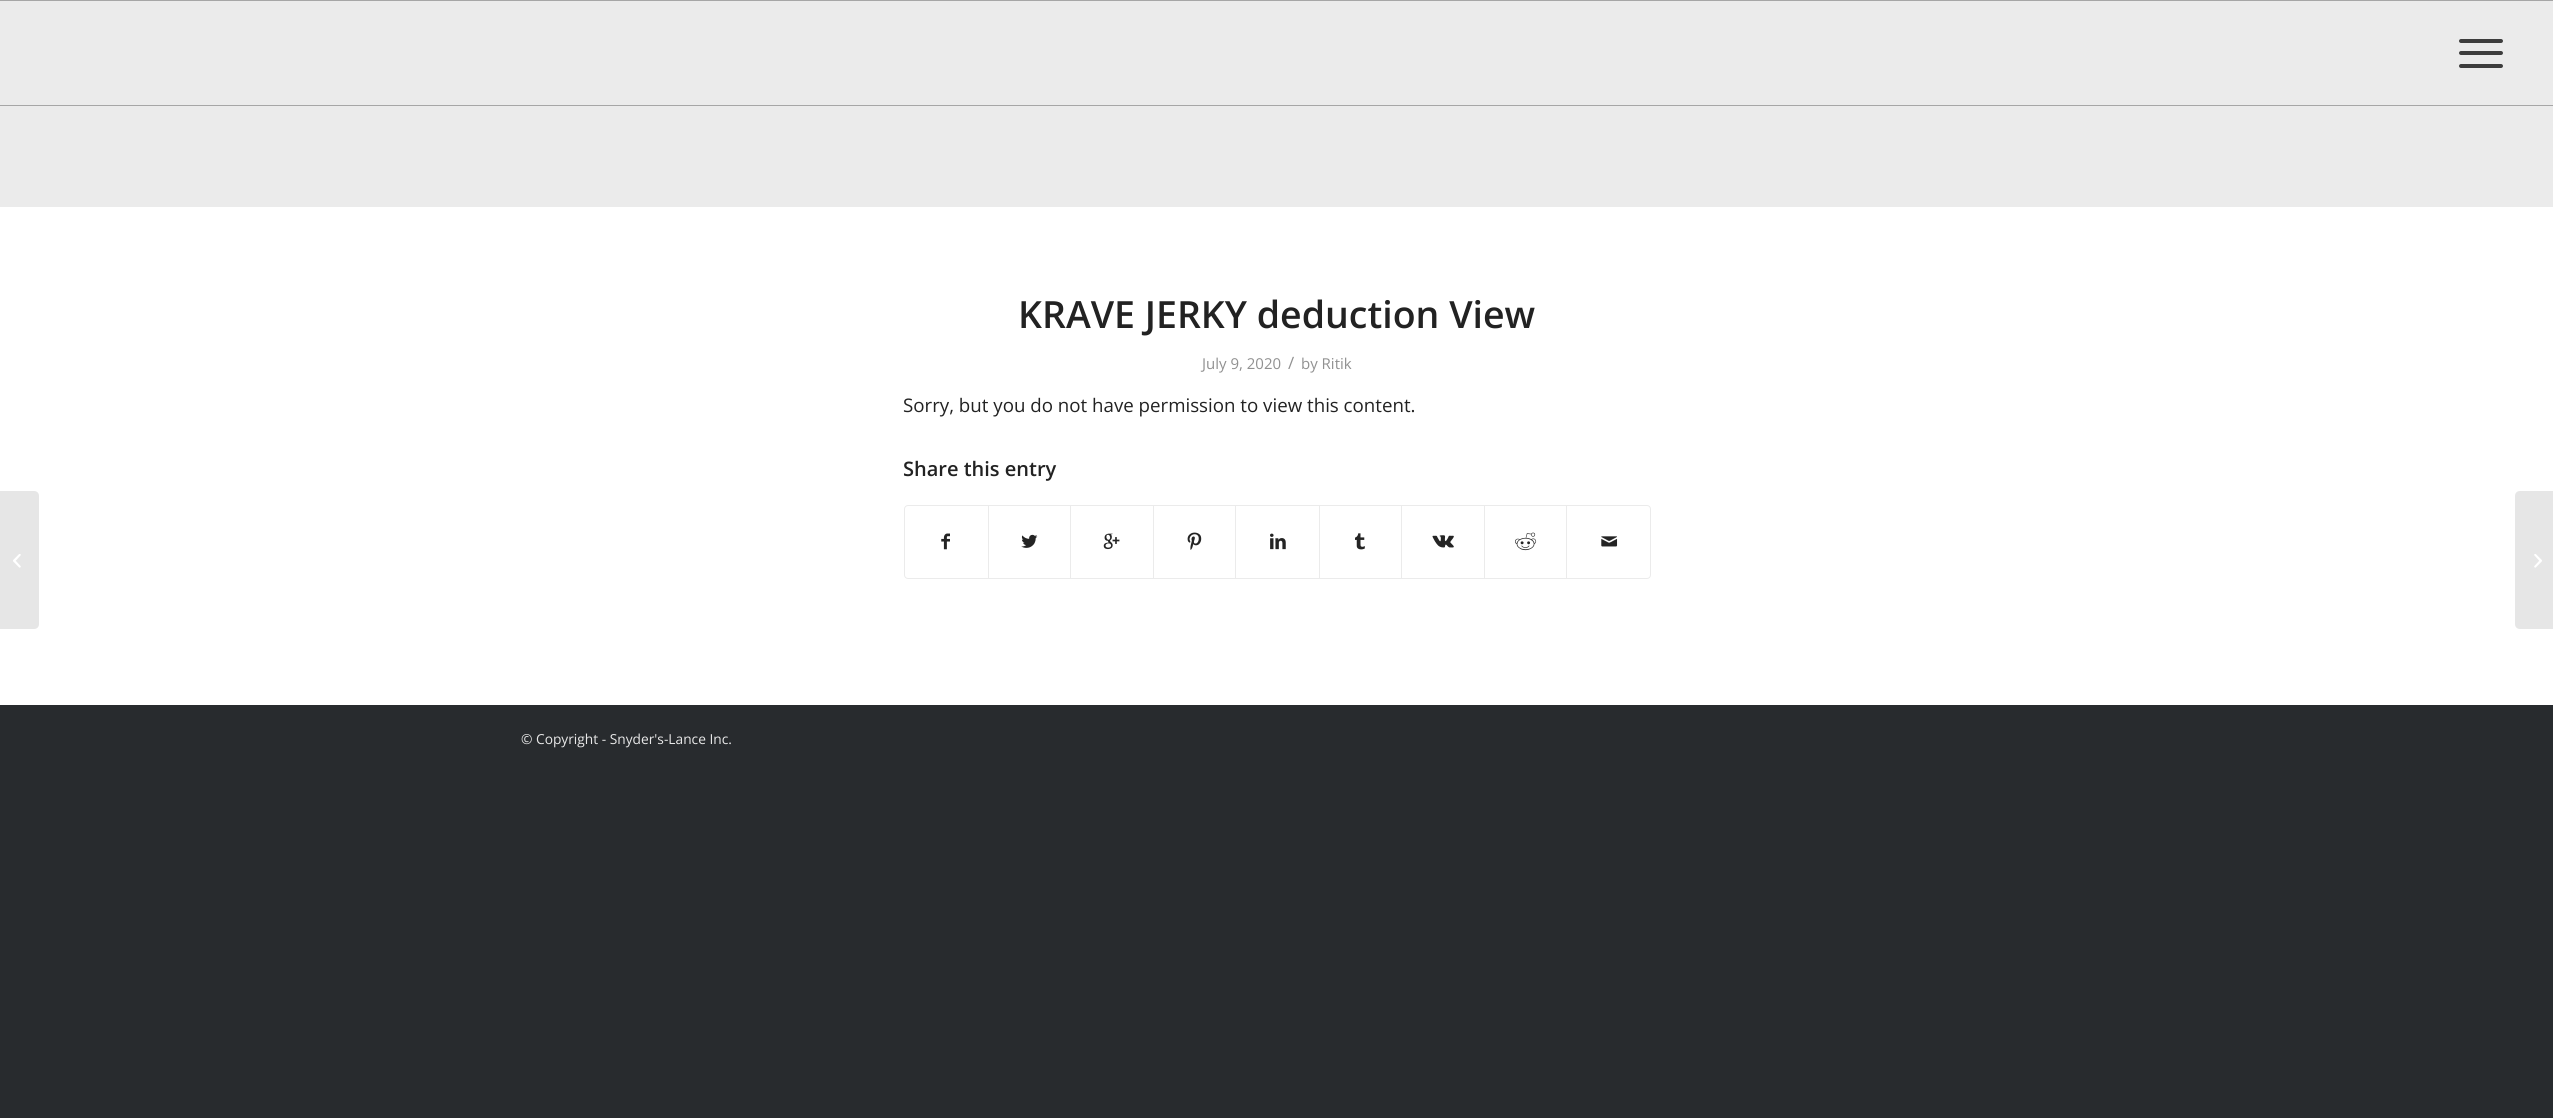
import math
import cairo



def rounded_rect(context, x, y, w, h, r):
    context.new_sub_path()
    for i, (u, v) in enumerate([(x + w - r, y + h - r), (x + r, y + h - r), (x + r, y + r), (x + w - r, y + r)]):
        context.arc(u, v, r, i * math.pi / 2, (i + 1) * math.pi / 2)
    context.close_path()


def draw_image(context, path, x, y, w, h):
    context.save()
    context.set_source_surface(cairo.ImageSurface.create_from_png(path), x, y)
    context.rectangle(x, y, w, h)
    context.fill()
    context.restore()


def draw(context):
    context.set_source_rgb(40 / 255, 43 / 255, 46 / 255)
    context.paint()
    context.set_source_rgb(166 / 255, 166 / 255, 166 / 255)
    context.rectangle(0, 0, 2553, 1)
    context.fill()
    context.set_source_rgb(235 / 255, 235 / 255, 235 / 255)
    context.rectangle(0, 1, 2553, 206)
    context.fill()
    context.set_source_rgb(166 / 255, 166 / 255, 166 / 255)
    context.rectangle(0, 105, 2553, 1)
    context.fill()
    context.set_source_rgb(61 / 255, 61 / 255, 61 / 255)
    rounded_rect(context, 2459, 51, 44, 4, 2)
    context.fill()
    rounded_rect(context, 2459, 39, 44, 4, 2)
    context.fill()
    rounded_rect(context, 2459, 64, 44, 4, 2)
    context.fill()
    context.set_source_rgb(1, 1, 1)
    context.rectangle(0, 207, 2553, 498)
    context.fill()
    context.set_source_rgb(230 / 255, 230 / 255, 230 / 255)
    context.new_path()
    context.move_to(0, 491)
    context.line_to(34, 491)
    context.curve_to(37, 491, 39, 493, 39, 496)
    context.line_to(39, 624)
    context.curve_to(39, 627, 37, 629, 34, 629)
    context.line_to(0, 629)
    context.close_path()
    context.fill()
    draw_image(context, "images/1.png", 13, 554, 8, 14)
    rounded_rect(context, 904.5, 505.5, 746, 73, 3.5)
    context.set_source_rgb(235 / 255, 235 / 255, 235 / 255)
    context.set_line_width(1)
    context.stroke()
    draw_image(context, "images/2.png", 941, 533, 9, 17)
    context.rectangle(988, 506, 1, 72)
    context.fill()
    draw_image(context, "images/3.png", 1021, 534, 17, 14)
    context.rectangle(1070, 506, 1, 72)
    context.fill()
    draw_image(context, "images/4.png", 1103, 533, 17, 17)
    context.rectangle(1153, 506, 1, 72)
    context.fill()
    draw_image(context, "images/5.png", 1187, 532, 15, 18)
    context.rectangle(1235, 506, 1, 72)
    context.fill()
    draw_image(context, "images/6.png", 1270, 533, 16, 17)
    context.rectangle(1319, 506, 1, 72)
    context.fill()
    draw_image(context, "images/7.png", 1355, 533, 10, 17)
    context.rectangle(1401, 506, 1, 72)
    context.fill()
    draw_image(context, "images/8.png", 1432, 535, 22, 13)
    context.rectangle(1484, 506, 1, 72)
    context.fill()
    draw_image(context, "images/9.png", 1515, 532, 22, 19)
    context.rectangle(1566, 506, 1, 72)
    context.fill()
    draw_image(context, "images/10.png", 1601, 536, 17, 11)
    context.set_source_rgb(230 / 255, 230 / 255, 230 / 255)
    context.new_path()
    context.move_to(2520, 491)
    context.line_to(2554, 491)
    context.line_to(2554, 629)
    context.line_to(2520, 629)
    context.curve_to(2517, 629, 2515, 627, 2515, 624)
    context.line_to(2515, 496)
    context.curve_to(2515, 493, 2517, 491, 2520, 491)
    context.close_path()
    context.fill()
    draw_image(context, "images/11.png", 2534, 554, 8, 14)
    context.select_font_face("Open Sans SemiBold")
    context.set_font_size(37.5)
    context.set_source_rgb(34 / 255, 34 / 255, 34 / 255)
    context.move_to(1018, 328)
    context.show_text("KRAVE JERKY deduction View")
    context.select_font_face("Open Sans")
    context.set_font_size(15)
    context.set_source_rgb(145 / 255, 145 / 255, 145 / 255)
    context.move_to(1202, 369)
    context.show_text("July 9, 2020")
    context.set_font_size(17)
    context.move_to(1288, 369)
    context.show_text("/")
    context.set_font_size(15)
    context.move_to(1301, 369)
    context.show_text("by Ritik")
    context.set_font_size(18.7)
    context.set_source_rgb(34 / 255, 34 / 255, 34 / 255)
    context.move_to(903, 412)
    context.show_text("Sorry, but you do not have permission to view this content.")
    context.select_font_face("Open Sans SemiBold")
    context.set_font_size(20)
    context.move_to(903, 476)
    context.show_text("Share this entry")
    context.select_font_face("Open Sans")
    context.set_font_size(13.75)
    context.set_source_rgb(232 / 255, 232 / 255, 232 / 255)
    context.move_to(521, 744)
    context.show_text("© Copyright - Snyder's-Lance Inc.")


surface = cairo.ImageSurface(cairo.Format.RGB24, 2553, 1118)
context = cairo.Context(surface)
options = cairo.FontOptions()
options.set_hint_metrics(cairo.HintMetrics.OFF)
options.set_hint_style(cairo.HintStyle.NONE)
context.set_font_options(options)
context.set_miter_limit(4)
draw(context)
surface.write_to_png("out.png")
